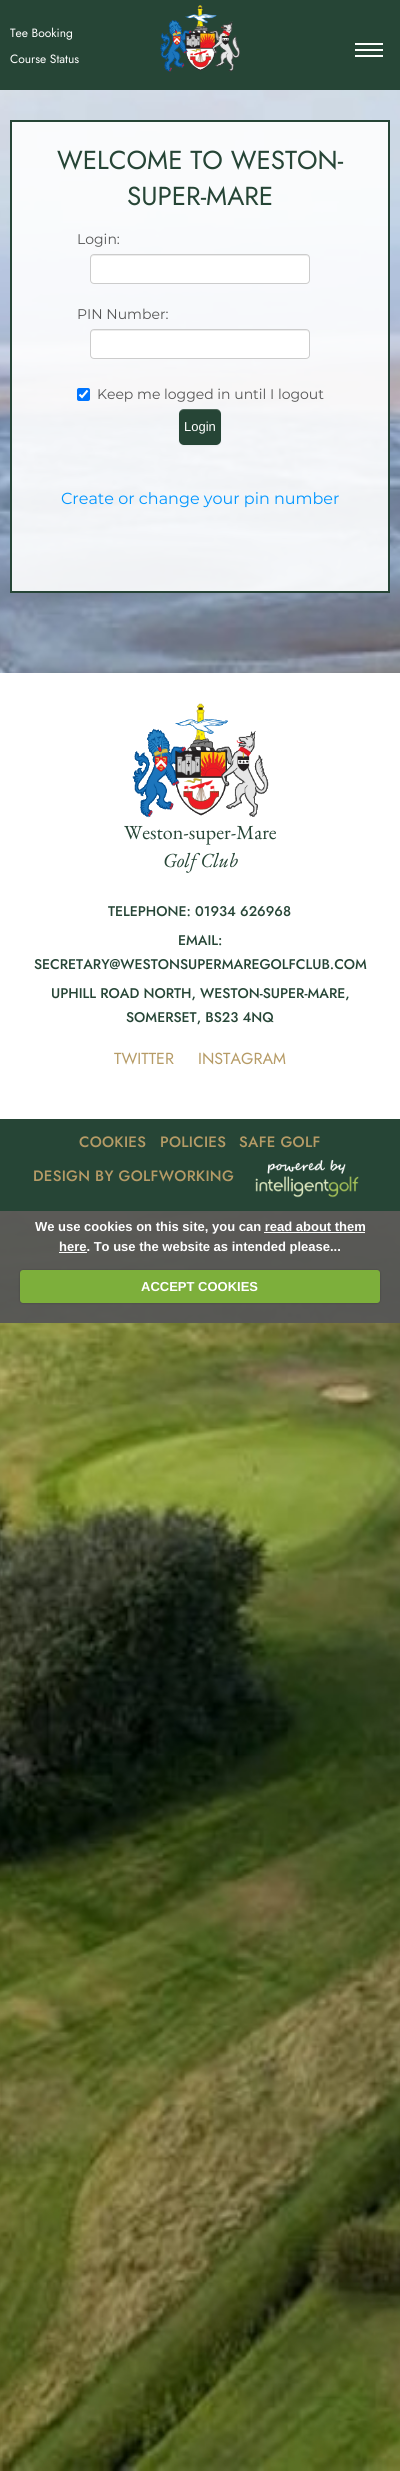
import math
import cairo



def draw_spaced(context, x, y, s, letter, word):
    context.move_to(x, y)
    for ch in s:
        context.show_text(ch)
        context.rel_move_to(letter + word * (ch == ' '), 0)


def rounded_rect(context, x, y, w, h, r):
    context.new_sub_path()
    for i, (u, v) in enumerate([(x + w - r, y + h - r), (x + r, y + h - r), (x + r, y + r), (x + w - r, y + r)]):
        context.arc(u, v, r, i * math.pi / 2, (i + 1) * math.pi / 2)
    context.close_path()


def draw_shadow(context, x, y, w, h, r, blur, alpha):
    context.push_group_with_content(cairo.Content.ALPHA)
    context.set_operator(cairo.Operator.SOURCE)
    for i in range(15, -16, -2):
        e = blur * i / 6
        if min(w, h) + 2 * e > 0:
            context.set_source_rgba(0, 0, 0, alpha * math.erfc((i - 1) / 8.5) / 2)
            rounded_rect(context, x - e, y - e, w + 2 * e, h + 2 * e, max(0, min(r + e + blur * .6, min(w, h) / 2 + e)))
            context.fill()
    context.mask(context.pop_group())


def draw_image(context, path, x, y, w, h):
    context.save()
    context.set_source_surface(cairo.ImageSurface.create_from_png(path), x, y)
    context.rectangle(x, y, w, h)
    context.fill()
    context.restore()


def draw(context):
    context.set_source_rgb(1, 1, 1)
    context.paint()
    draw_image(context, "images/1.png", 0, 90, 400, 2381)
    context.set_source_rgb(38 / 255, 69 / 255, 54 / 255)
    context.rectangle(0, 0, 400, 90)
    context.fill()
    draw_image(context, "images/2.png", 160, 5, 80, 67)
    context.set_source_rgb(1, 1, 1)
    context.rectangle(355, 43, 28, 2)
    context.fill()
    context.rectangle(355, 49, 28, 2)
    context.fill()
    context.rectangle(355, 55, 28, 2)
    context.fill()
    context.set_source_rgba(1, 1, 1, 0.9)
    context.rectangle(11, 121, 378, 471)
    context.fill_preserve()
    context.set_source_rgb(38 / 255, 69 / 255, 54 / 255)
    context.stroke()
    context.set_source_rgb(1, 1, 1)
    rounded_rect(context, 90, 254, 220, 30, 4)
    context.fill()
    context.set_source_rgb(236 / 255, 236 / 255, 236 / 255)
    context.new_path()
    context.move_to(94, 256)
    context.line_to(306, 256)
    context.curve_to(308, 256, 309, 257, 309, 259)
    context.line_to(309, 258)
    context.curve_to(309, 256, 308, 255, 306, 255)
    context.line_to(94, 255)
    context.curve_to(92, 255, 91, 256, 91, 258)
    context.line_to(91, 259)
    context.curve_to(91, 257, 92, 256, 94, 256)
    context.close_path()
    context.fill()
    rounded_rect(context, 90.5, 254.5, 219, 29, 3.5)
    context.set_source_rgb(204 / 255, 204 / 255, 204 / 255)
    context.set_line_width(1)
    context.stroke()
    context.set_source_rgb(1, 1, 1)
    rounded_rect(context, 90, 329, 220, 30, 4)
    context.fill()
    context.set_source_rgb(236 / 255, 236 / 255, 236 / 255)
    context.new_path()
    context.move_to(94, 331)
    context.line_to(306, 331)
    context.curve_to(308, 331, 309, 332, 309, 334)
    context.line_to(309, 333)
    context.curve_to(309, 331, 308, 330, 306, 330)
    context.line_to(94, 330)
    context.curve_to(92, 330, 91, 331, 91, 333)
    context.line_to(91, 334)
    context.curve_to(91, 332, 92, 331, 94, 331)
    context.close_path()
    context.fill()
    rounded_rect(context, 90.5, 329.5, 219, 29, 3.5)
    context.set_source_rgb(204 / 255, 204 / 255, 204 / 255)
    context.stroke()
    context.set_source_rgb(0, 117 / 255, 1)
    rounded_rect(context, 77, 388, 13, 13, 2)
    context.fill()
    context.new_path()
    context.move_to(79.5, 394.5)
    context.line_to(82, 397)
    context.line_to(87.5, 390.5)
    context.set_source_rgb(1, 1, 1)
    context.set_line_width(2.1)
    context.stroke()
    context.set_source_rgb(0, 0, 0)
    draw_shadow(context, 179, 410, 42, 36, 5, 1, 0.05)
    context.set_source_rgb(38 / 255, 69 / 255, 54 / 255)
    rounded_rect(context, 179, 409, 42, 36, 5)
    context.fill()
    context.set_source_rgba(1, 1, 1, 0.2)
    context.new_path()
    context.move_to(184, 410)
    context.line_to(216, 410)
    context.curve_to(219, 410, 221, 412, 221, 415)
    context.curve_to(221, 408, 216, 409, 211, 409)
    context.line_to(189, 409)
    context.curve_to(184, 409, 179, 408, 179, 415)
    context.curve_to(179, 412, 181, 410, 184, 410)
    context.close_path()
    context.fill()
    context.set_source_rgb(1, 1, 1)
    context.rectangle(0, 673, 400, 446)
    context.fill()
    draw_image(context, "images/3.png", 132, 703, 137, 115)
    context.set_source_rgb(38 / 255, 69 / 255, 54 / 255)
    context.rectangle(0, 1119, 400, 92)
    context.fill()
    draw_image(context, "images/4.png", 255, 1159, 104, 39)
    context.set_source_rgba(86 / 255, 86 / 255, 86 / 255, 0.95)
    context.rectangle(0, 1211, 400, 112)
    context.fill()
    context.set_source_rgb(1, 1, 1)
    context.rectangle(264, 1232, 101, 1)
    context.fill()
    context.rectangle(59, 1252, 28, 1)
    context.fill()
    context.set_source_rgb(0, 0, 0)
    draw_shadow(context, 20, 1270, 360, 33, 3, 1, 0.25)
    context.set_source_rgb(125 / 255, 175 / 255, 59 / 255)
    rounded_rect(context, 20, 1270, 360, 33, 3)
    context.fill()
    context.select_font_face("Jost")
    context.set_font_size(12)
    context.set_source_rgb(1, 1, 1)
    context.move_to(10, 37)
    context.show_text("Tee Booking")
    context.move_to(10, 63)
    context.show_text("Course Status")
    context.set_font_size(26)
    context.set_source_rgb(38 / 255, 69 / 255, 54 / 255)
    context.move_to(57, 169)
    context.show_text("WELCOME TO WESTON-")
    context.move_to(127, 205)
    context.show_text("SUPER-MARE")
    context.select_font_face("Montserrat")
    context.set_font_size(14)
    context.set_source_rgb(85 / 255, 85 / 255, 85 / 255)
    context.move_to(77, 244)
    context.show_text("Login:")
    context.move_to(77, 319)
    context.show_text("PIN Number:")
    context.move_to(97, 399)
    context.show_text("Keep me logged in until I logout")
    context.select_font_face("Liberation Sans")
    context.set_font_size(13)
    context.set_source_rgb(1, 1, 1)
    context.move_to(184, 431)
    context.show_text("Login")
    context.select_font_face("Montserrat")
    context.set_font_size(16)
    context.set_source_rgb(0, 150 / 255, 1)
    context.move_to(61, 504)
    context.show_text("Create or change your pin number")
    context.select_font_face("EB Garamond")
    context.set_font_size(20)
    context.set_source_rgb(38 / 255, 69 / 255, 54 / 255)
    context.move_to(124, 839)
    context.show_text("Weston-super-Mare")
    context.select_font_face("EB Garamond", cairo.FontSlant.ITALIC)
    context.move_to(163, 867)
    context.show_text("Golf Club")
    context.select_font_face("Jost Medium")
    context.set_font_size(14)
    context.move_to(108, 916)
    context.show_text("TELEPHONE: 01934 626968")
    context.move_to(178, 945)
    context.show_text("EMAIL:")
    context.move_to(34, 969)
    context.show_text("SECRETARY@WESTONSUPERMAREGOLFCLUB.COM")
    context.move_to(51, 998)
    context.show_text("UPHILL ROAD NORTH, WESTON-SUPER-MARE,")
    context.move_to(126, 1022)
    context.show_text("SOMERSET, BS23 4NQ")
    context.select_font_face("Jost")
    context.set_font_size(16)
    context.set_source_rgb(182 / 255, 155 / 255, 102 / 255)
    context.move_to(114, 1064)
    context.show_text("TWITTER")
    context.move_to(198, 1064)
    context.show_text("INSTAGRAM")
    context.select_font_face("Jost Medium")
    context.set_font_size(15)
    draw_spaced(context, 79, 1147, "COOKIES", 0.3, 0)
    draw_spaced(context, 160, 1147, "POLICIES", 0.3, 0)
    draw_spaced(context, 239, 1147, "SAFE GOLF", 0.3, 0)
    draw_spaced(context, 33, 1181, "DESIGN BY GOLFWORKING", 0.3, 0)
    context.select_font_face("Liberation Sans", cairo.FontSlant.NORMAL, cairo.FontWeight.BOLD)
    context.set_font_size(13)
    context.set_source_rgb(1, 1, 1)
    context.move_to(35, 1231)
    context.show_text("We use cookies on this site, you can read about them")
    context.move_to(59, 1251)
    context.show_text("here. To use the website as intended please...")
    context.move_to(141, 1291)
    context.show_text("ACCEPT COOKIES")


surface = cairo.ImageSurface(cairo.Format.RGB24, 400, 2471)
context = cairo.Context(surface)
options = cairo.FontOptions()
options.set_hint_metrics(cairo.HintMetrics.OFF)
options.set_hint_style(cairo.HintStyle.NONE)
context.set_font_options(options)
context.set_miter_limit(4)
draw(context)
surface.write_to_png("out.png")
